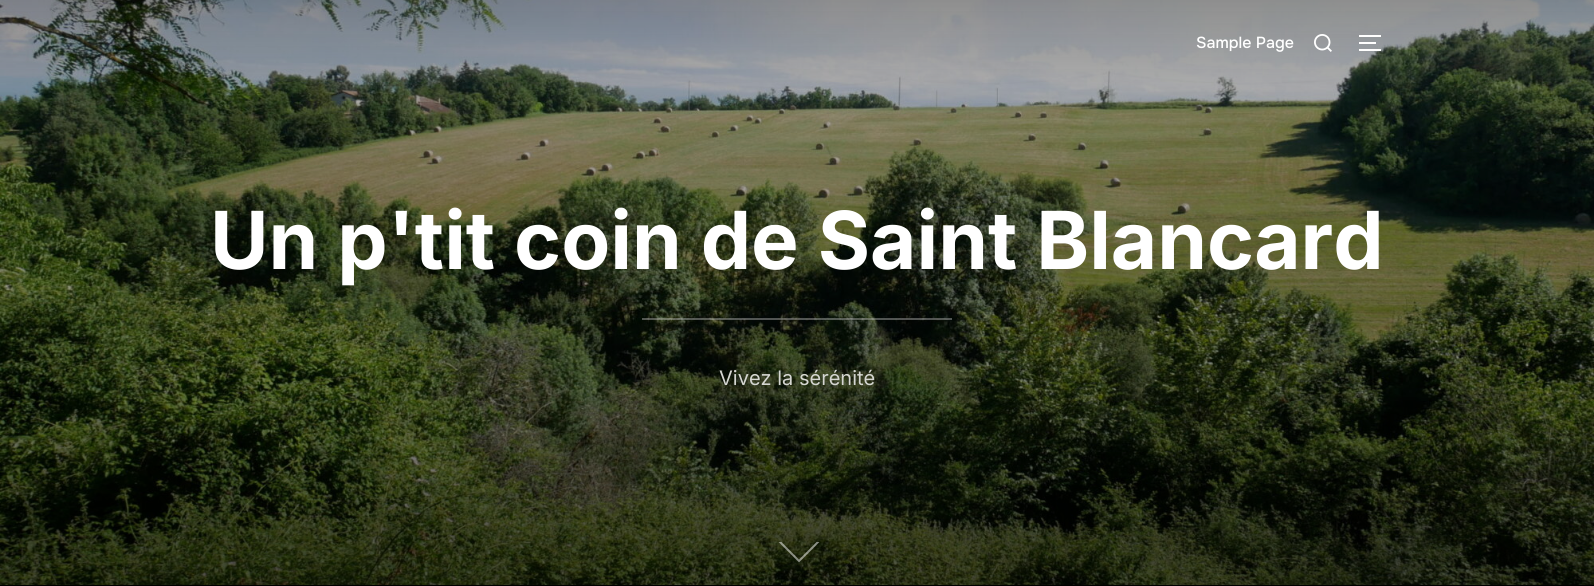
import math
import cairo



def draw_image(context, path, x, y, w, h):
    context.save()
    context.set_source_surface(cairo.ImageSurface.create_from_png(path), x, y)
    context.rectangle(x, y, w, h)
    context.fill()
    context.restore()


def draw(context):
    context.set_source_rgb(0, 0, 0)
    context.paint()
    draw_image(context, "images/2.png", 0, 0, 1594, 585)
    draw_image(context, "images/1.png", 1314, 34, 18, 18)
    context.set_source_rgb(1, 1, 1)
    context.rectangle(1359, 35, 22, 2)
    context.fill()
    context.rectangle(1359, 42, 17, 2)
    context.fill()
    context.rectangle(1359, 49, 22, 2)
    context.fill()
    context.set_source_rgba(201 / 255, 201 / 255, 201 / 255, 0.4)
    context.rectangle(642, 318, 310, 2)
    context.fill()
    context.save()
    context.rectangle(769, 542, 56, 24)
    context.clip()
    context.new_path()
    context.move_to(799, 521)
    context.line_to(819, 541)
    context.line_to(799, 561)
    context.line_to(779, 541)
    context.close_path()
    context.set_source_rgba(1, 1, 1, 0.5)
    context.stroke()
    context.restore()
    context.select_font_face("Onest Medium")
    context.set_font_size(16)
    context.set_source_rgb(1, 1, 1)
    context.move_to(1196, 48)
    context.show_text("Sample Page")
    context.select_font_face("Inter", cairo.FontSlant.NORMAL, cairo.FontWeight.BOLD)
    context.set_font_size(80)
    context.move_to(210, 269)
    context.show_text("Un p'tit coin de Saint Blancard")
    context.select_font_face("Inter")
    context.set_font_size(20)
    context.set_source_rgb(213 / 255, 214 / 255, 209 / 255)
    context.move_to(719, 385)
    context.show_text("Vivez la sérénité")


surface = cairo.ImageSurface(cairo.Format.RGB24, 1594, 586)
context = cairo.Context(surface)
options = cairo.FontOptions()
options.set_hint_metrics(cairo.HintMetrics.OFF)
options.set_hint_style(cairo.HintStyle.NONE)
context.set_font_options(options)
context.set_miter_limit(4)
draw(context)
surface.write_to_png("out.png")
